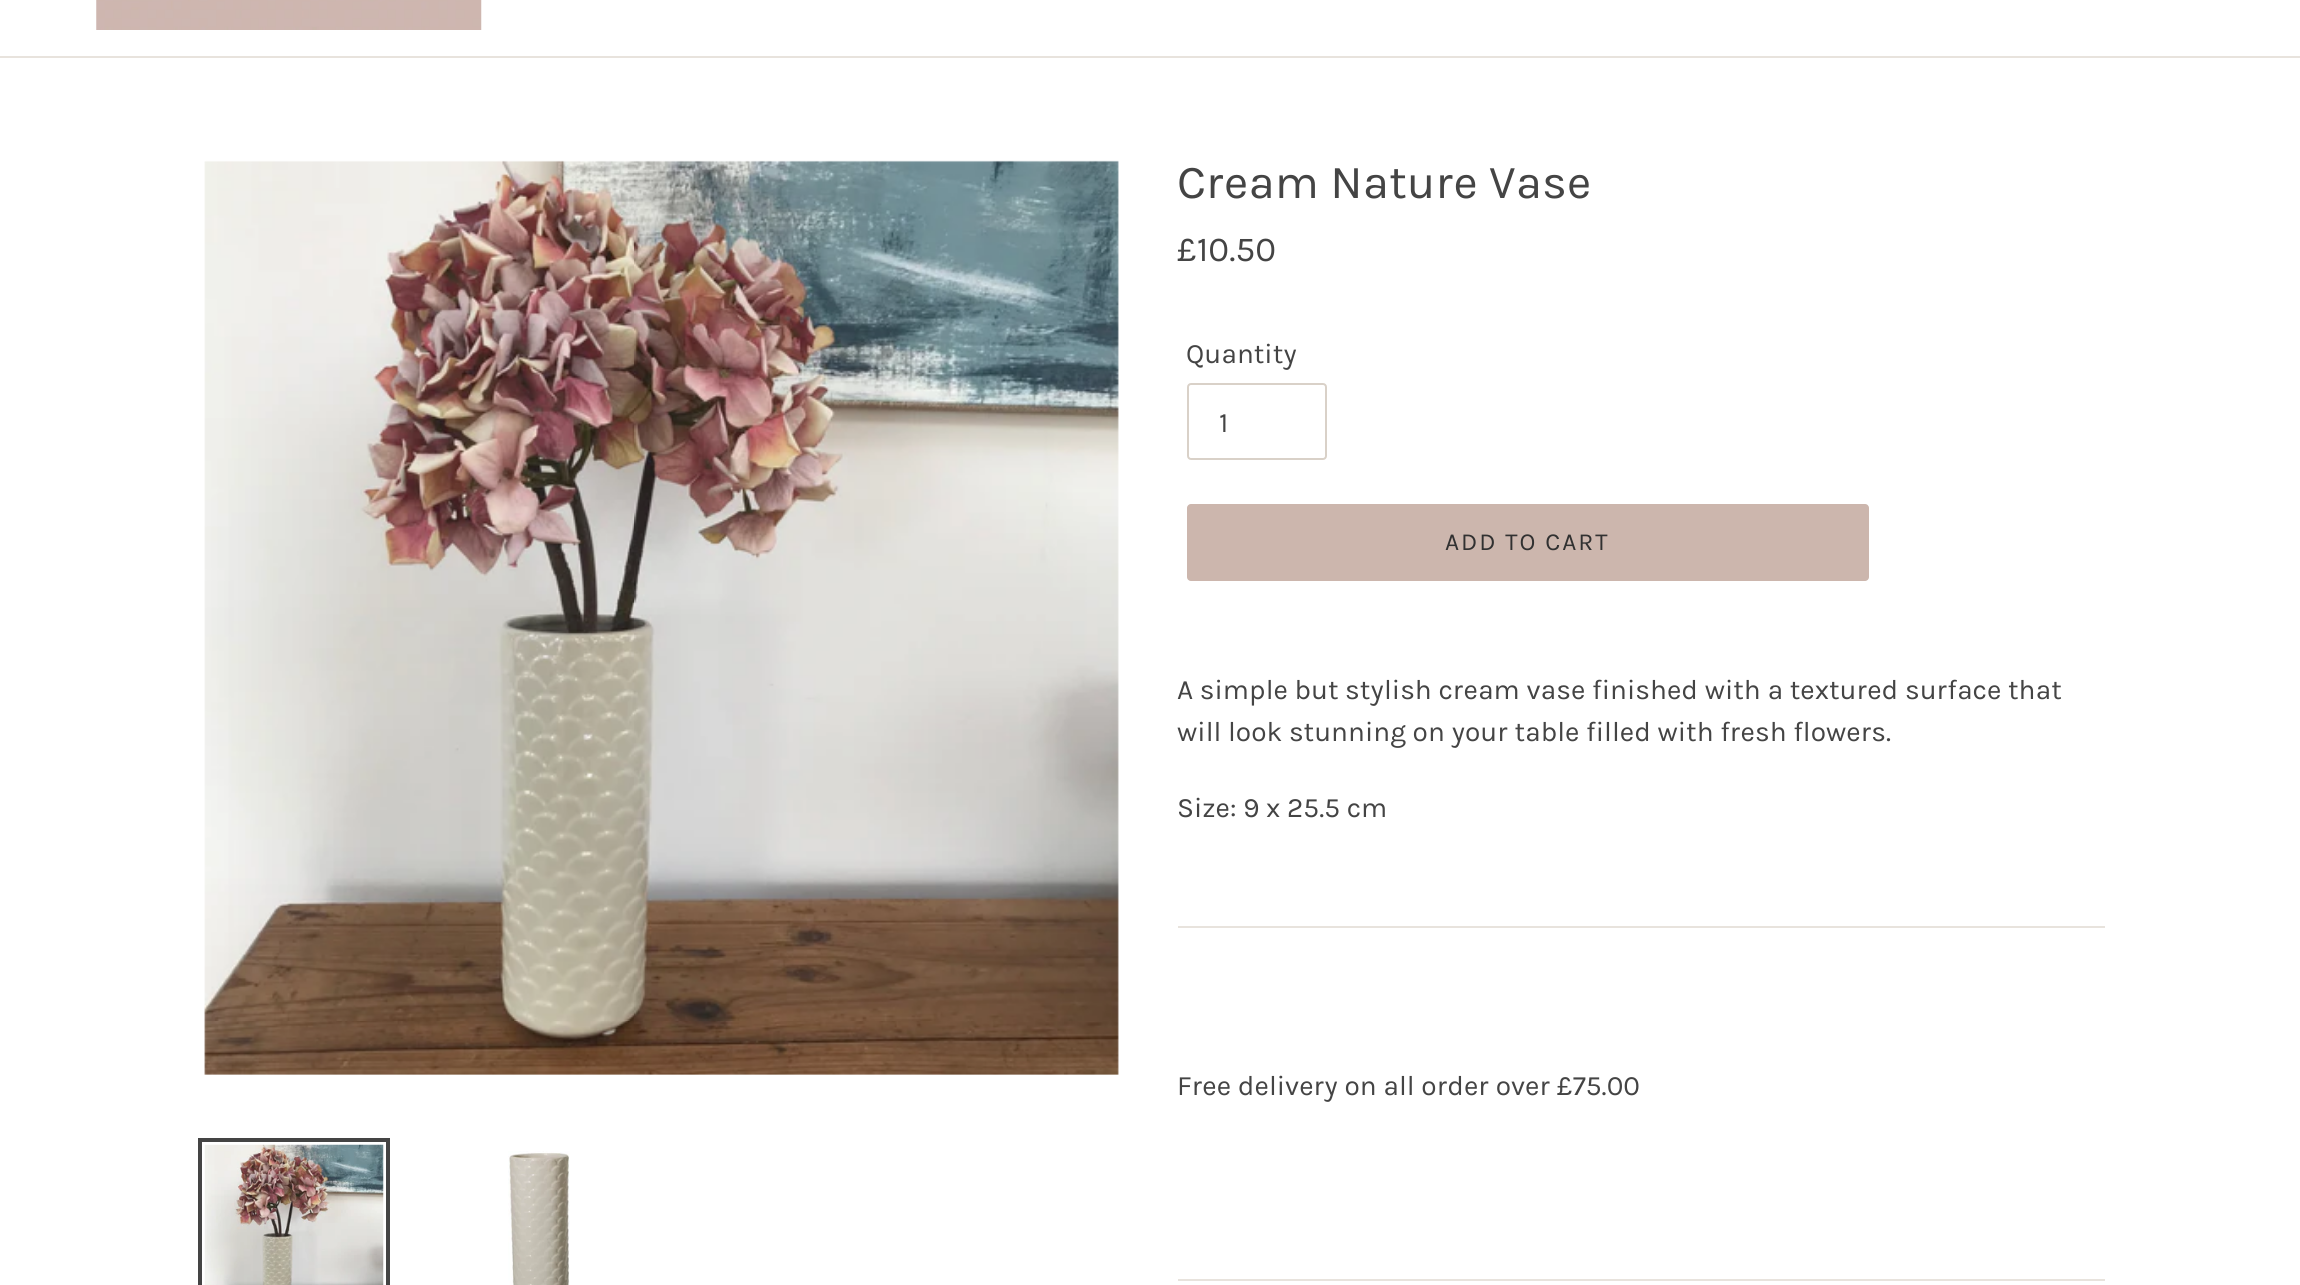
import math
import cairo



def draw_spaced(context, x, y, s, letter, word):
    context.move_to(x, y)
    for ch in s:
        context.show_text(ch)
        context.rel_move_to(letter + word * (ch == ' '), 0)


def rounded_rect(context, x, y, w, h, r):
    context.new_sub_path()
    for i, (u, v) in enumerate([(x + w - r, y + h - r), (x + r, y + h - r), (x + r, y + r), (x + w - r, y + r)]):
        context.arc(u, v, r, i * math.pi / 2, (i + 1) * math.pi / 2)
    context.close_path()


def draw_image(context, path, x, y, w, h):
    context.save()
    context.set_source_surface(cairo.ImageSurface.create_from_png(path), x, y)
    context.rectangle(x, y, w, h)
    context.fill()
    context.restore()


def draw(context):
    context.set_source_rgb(1, 1, 1)
    context.paint()
    context.set_source_rgb(232 / 255, 227 / 255, 221 / 255)
    context.rectangle(0, 56, 2300, 2)
    context.fill()
    draw_image(context, "images/1.png", 96, 0, 386, 30)
    draw_image(context, "images/2.png", 204, 160, 915, 915)
    context.rectangle(200, 1140, 188, 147)
    context.set_source_rgb(68 / 255, 68 / 255, 68 / 255)
    context.set_line_width(4)
    context.stroke()
    draw_image(context, "images/3.png", 204, 1144, 180, 141)
    draw_image(context, "images/4.png", 508, 1151, 62, 134)
    rounded_rect(context, 1188, 384, 138, 75, 3)
    context.set_source_rgb(217 / 255, 209 / 255, 200 / 255)
    context.set_line_width(2)
    context.stroke()
    context.set_source_rgb(204 / 255, 182 / 255, 173 / 255)
    rounded_rect(context, 1187, 504, 682, 77, 4)
    context.fill()
    context.set_source_rgb(232 / 255, 227 / 255, 221 / 255)
    context.rectangle(1178, 926, 927, 2)
    context.fill()
    context.rectangle(1178, 1279, 927, 2)
    context.fill()
    context.select_font_face("Karla")
    context.set_font_size(47.25)
    context.set_source_rgb(68 / 255, 68 / 255, 68 / 255)
    context.move_to(1177, 198)
    context.show_text("Cream Nature Vase")
    context.set_font_size(35)
    context.move_to(1177, 261)
    context.show_text("£10.50")
    context.set_font_size(28)
    context.move_to(1186, 363)
    context.show_text("Quantity")
    context.move_to(1219, 432)
    context.show_text("1")
    context.set_font_size(24.5)
    context.set_source_rgb(49 / 255, 49 / 255, 49 / 255)
    draw_spaced(context, 1445, 550, "ADD TO CART", 2, 0)
    context.set_font_size(28)
    context.set_source_rgb(68 / 255, 68 / 255, 68 / 255)
    context.move_to(1177, 699)
    context.show_text("A simple but stylish cream vase finished with a textured surface that")
    context.move_to(1177, 741)
    context.show_text("will look stunning on your table filled with fresh flowers.")
    context.move_to(1177, 817)
    context.show_text("Size: 9 x 25.5 cm")
    context.move_to(1177, 1095)
    context.show_text("Free delivery on all order over £75.00")


surface = cairo.ImageSurface(cairo.Format.RGB24, 2300, 1285)
context = cairo.Context(surface)
options = cairo.FontOptions()
options.set_hint_metrics(cairo.HintMetrics.OFF)
options.set_hint_style(cairo.HintStyle.NONE)
context.set_font_options(options)
context.set_miter_limit(4)
draw(context)
surface.write_to_png("out.png")
